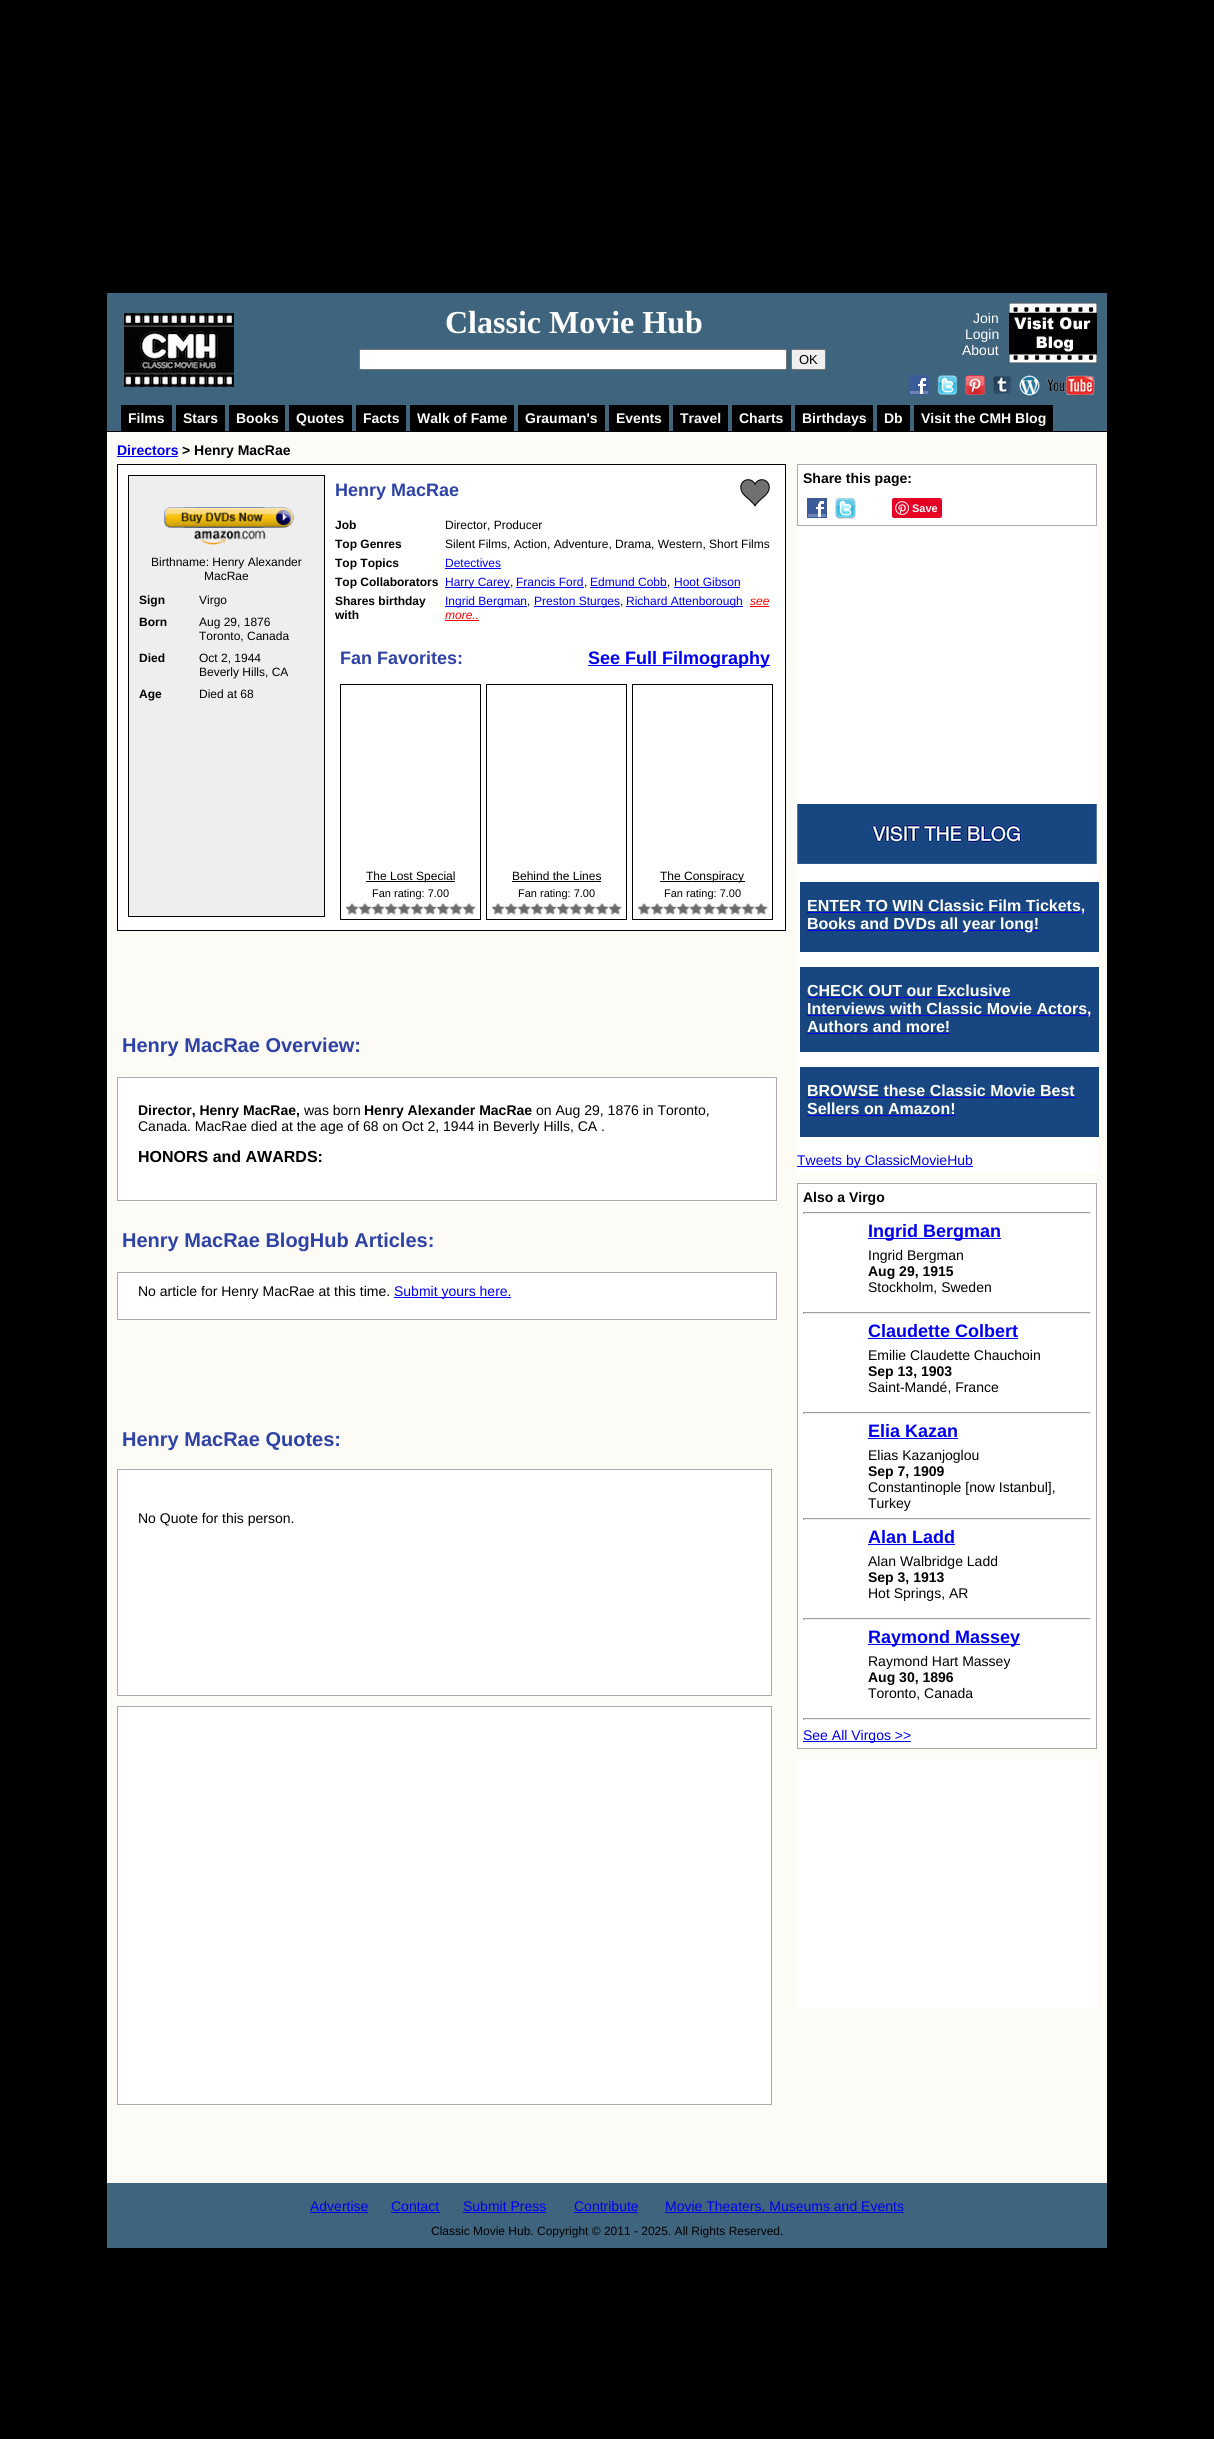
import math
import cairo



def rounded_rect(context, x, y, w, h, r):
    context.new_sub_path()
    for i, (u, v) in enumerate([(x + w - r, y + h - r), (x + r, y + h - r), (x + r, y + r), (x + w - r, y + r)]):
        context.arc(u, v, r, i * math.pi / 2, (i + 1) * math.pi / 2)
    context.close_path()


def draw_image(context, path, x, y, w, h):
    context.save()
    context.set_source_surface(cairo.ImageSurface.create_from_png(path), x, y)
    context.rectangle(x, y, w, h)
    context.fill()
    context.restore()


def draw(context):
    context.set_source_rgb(0, 0, 0)
    context.paint()
    context.set_source_rgb(252 / 255, 251 / 255, 246 / 255)
    context.rectangle(107, 432, 1000, 1751)
    context.fill()
    context.set_source_rgb(63 / 255, 100 / 255, 126 / 255)
    context.rectangle(107, 293, 132, 110)
    context.fill()
    draw_image(context, "images/1.png", 124, 313, 110, 74)
    context.rectangle(239, 293, 868, 110)
    context.fill()
    context.set_source_rgb(1, 1, 1)
    rounded_rect(context, 359.5, 349.5, 427, 20, 1.5)
    context.fill_preserve()
    context.set_source_rgb(118 / 255, 118 / 255, 118 / 255)
    context.set_line_width(1)
    context.stroke()
    context.set_source_rgb(239 / 255, 239 / 255, 239 / 255)
    rounded_rect(context, 791.5, 349.5, 34, 20, 1.5)
    context.fill_preserve()
    context.set_source_rgb(118 / 255, 118 / 255, 118 / 255)
    context.stroke()
    draw_image(context, "images/2.png", 1009, 303, 88, 60)
    draw_image(context, "images/3.png", 909, 375, 20, 20)
    draw_image(context, "images/4.png", 937, 375, 21, 21)
    draw_image(context, "images/5.png", 965, 375, 20, 20)
    draw_image(context, "images/6.png", 993, 375, 19, 20)
    draw_image(context, "images/7.png", 1019, 375, 21, 21)
    draw_image(context, "images/8.png", 1047, 375, 48, 20)
    context.set_source_rgb(63 / 255, 100 / 255, 126 / 255)
    context.rectangle(107, 403, 1000, 28)
    context.fill()
    context.set_source_rgb(0, 0, 0)
    context.rectangle(121, 405, 51, 26)
    context.fill()
    context.rectangle(176, 405, 49, 26)
    context.fill()
    context.rectangle(229, 405, 56, 26)
    context.fill()
    context.rectangle(289, 405, 63, 26)
    context.fill()
    context.rectangle(356, 405, 50, 26)
    context.fill()
    context.rectangle(410, 405, 104, 26)
    context.fill()
    context.rectangle(518, 405, 87, 26)
    context.fill()
    context.rectangle(609, 405, 60, 26)
    context.fill()
    context.rectangle(673, 405, 55, 26)
    context.fill()
    context.rectangle(732, 405, 59, 26)
    context.fill()
    context.rectangle(795, 405, 78, 26)
    context.fill()
    context.rectangle(877, 405, 33, 26)
    context.fill()
    context.rectangle(914, 405, 139, 26)
    context.fill()
    context.set_source_rgb(0, 0, 238 / 255)
    context.rectangle(117, 456, 61, 1)
    context.fill()
    context.set_source_rgb(1, 1, 1)
    context.rectangle(117.5, 464.5, 668, 466)
    context.fill_preserve()
    context.set_source_rgb(0, 0, 0)
    context.stroke()
    context.set_source_rgb(238 / 255, 238 / 255, 238 / 255)
    context.rectangle(128.5, 475.5, 196, 441)
    context.fill_preserve()
    context.set_source_rgb(0, 0, 0)
    context.stroke()
    draw_image(context, "images/9.png", 164, 507, 130, 38)
    draw_image(context, "images/10.png", 740, 479, 30, 28)
    context.set_source_rgb(0, 0, 238 / 255)
    context.rectangle(445, 568, 56, 1)
    context.fill()
    context.rectangle(445, 587, 65, 1)
    context.fill()
    context.rectangle(516, 587, 68, 1)
    context.fill()
    context.rectangle(590, 587, 77, 1)
    context.fill()
    context.rectangle(674, 587, 66, 1)
    context.fill()
    context.rectangle(445, 606, 82, 1)
    context.fill()
    context.rectangle(534, 606, 86, 1)
    context.fill()
    context.rectangle(626, 606, 117, 1)
    context.fill()
    context.set_source_rgb(1, 0, 0)
    context.rectangle(750, 606, 19, 1)
    context.fill()
    context.rectangle(445, 620, 34, 1)
    context.fill()
    context.set_source_rgb(0, 0, 238 / 255)
    context.rectangle(588, 665, 182, 1)
    context.fill()
    context.rectangle(340.5, 684.5, 140, 235)
    context.set_source_rgb(0, 0, 0)
    context.stroke()
    context.rectangle(366, 881, 89, 1)
    context.fill()
    draw_image(context, "images/11.png", 346, 903, 13, 12)
    draw_image(context, "images/11.png", 359, 903, 13, 12)
    draw_image(context, "images/12.png", 372, 903, 13, 12)
    draw_image(context, "images/12.png", 385, 903, 13, 12)
    draw_image(context, "images/11.png", 398, 903, 13, 12)
    draw_image(context, "images/11.png", 411, 903, 13, 12)
    draw_image(context, "images/11.png", 424, 903, 13, 12)
    draw_image(context, "images/12.png", 437, 903, 13, 12)
    draw_image(context, "images/12.png", 450, 903, 13, 12)
    draw_image(context, "images/12.png", 463, 903, 13, 12)
    context.rectangle(486.5, 684.5, 140, 235)
    context.stroke()
    context.rectangle(512, 881, 89, 1)
    context.fill()
    draw_image(context, "images/11.png", 492, 903, 13, 12)
    draw_image(context, "images/12.png", 505, 903, 13, 12)
    draw_image(context, "images/11.png", 518, 903, 13, 12)
    draw_image(context, "images/12.png", 531, 903, 13, 12)
    draw_image(context, "images/11.png", 544, 903, 13, 12)
    draw_image(context, "images/11.png", 557, 903, 13, 12)
    draw_image(context, "images/12.png", 570, 903, 13, 12)
    draw_image(context, "images/11.png", 583, 903, 13, 12)
    draw_image(context, "images/11.png", 596, 903, 13, 12)
    draw_image(context, "images/12.png", 609, 903, 13, 12)
    context.rectangle(632.5, 684.5, 140, 235)
    context.stroke()
    context.rectangle(660, 881, 85, 1)
    context.fill()
    draw_image(context, "images/11.png", 638, 903, 13, 12)
    draw_image(context, "images/11.png", 651, 903, 13, 12)
    draw_image(context, "images/11.png", 664, 903, 13, 12)
    draw_image(context, "images/11.png", 677, 903, 13, 12)
    draw_image(context, "images/11.png", 690, 903, 13, 12)
    draw_image(context, "images/11.png", 703, 903, 13, 12)
    draw_image(context, "images/11.png", 716, 903, 13, 12)
    draw_image(context, "images/11.png", 729, 903, 13, 12)
    draw_image(context, "images/11.png", 742, 903, 13, 12)
    draw_image(context, "images/12.png", 755, 903, 13, 12)
    context.set_source_rgb(1, 1, 1)
    context.rectangle(117.5, 1077.5, 659, 123)
    context.fill_preserve()
    context.set_source_rgb(170 / 255, 170 / 255, 170 / 255)
    context.stroke()
    context.set_source_rgb(1, 1, 1)
    context.rectangle(117.5, 1272.5, 659, 47)
    context.fill_preserve()
    context.set_source_rgb(170 / 255, 170 / 255, 170 / 255)
    context.stroke()
    context.set_source_rgb(0, 0, 238 / 255)
    context.rectangle(394, 1297, 117, 1)
    context.fill()
    context.set_source_rgb(1, 1, 1)
    context.rectangle(117.5, 1469.5, 654, 226)
    context.fill_preserve()
    context.set_source_rgb(170 / 255, 170 / 255, 170 / 255)
    context.stroke()
    context.set_source_rgb(1, 1, 1)
    context.rectangle(117.5, 1706.5, 654, 398)
    context.fill_preserve()
    context.set_source_rgb(170 / 255, 170 / 255, 170 / 255)
    context.stroke()
    context.set_source_rgb(1, 1, 1)
    context.rectangle(797.5, 464.5, 299, 61)
    context.fill_preserve()
    context.set_source_rgb(170 / 255, 170 / 255, 170 / 255)
    context.stroke()
    draw_image(context, "images/3.png", 807, 498, 20, 20)
    draw_image(context, "images/13.png", 835, 498, 21, 21)
    context.set_source_rgb(230 / 255, 0, 35 / 255)
    rounded_rect(context, 892, 498, 50, 20, 2)
    context.fill()
    draw_image(context, "images/14.png", 895, 501, 14, 14)
    context.set_source_rgb(1, 1, 1)
    context.rectangle(797, 526, 300, 647)
    context.fill()
    draw_image(context, "images/15.png", 797, 804, 300, 60)
    context.rectangle(1097, 867, 1, 5)
    context.fill()
    context.set_source_rgb(23 / 255, 70 / 255, 129 / 255)
    context.rectangle(800, 882, 299, 70)
    context.fill()
    context.set_source_rgb(0, 0, 238 / 255)
    context.rectangle(807, 912, 278, 1)
    context.fill()
    context.rectangle(807, 930, 232, 1)
    context.fill()
    context.set_source_rgb(23 / 255, 70 / 255, 129 / 255)
    context.rectangle(800, 967, 299, 85)
    context.fill()
    context.set_source_rgb(0, 0, 238 / 255)
    context.rectangle(807, 997, 204, 1)
    context.fill()
    context.rectangle(807, 1015, 285, 1)
    context.fill()
    context.rectangle(807, 1033, 143, 1)
    context.fill()
    context.set_source_rgb(23 / 255, 70 / 255, 129 / 255)
    context.rectangle(800, 1067, 299, 70)
    context.fill()
    context.set_source_rgb(0, 0, 238 / 255)
    context.rectangle(807, 1097, 268, 1)
    context.fill()
    context.rectangle(807, 1115, 148, 1)
    context.fill()
    context.rectangle(797, 1166, 176, 1)
    context.fill()
    context.set_source_rgb(1, 1, 1)
    context.rectangle(797.5, 1183.5, 299, 565)
    context.fill_preserve()
    context.set_source_rgb(170 / 255, 170 / 255, 170 / 255)
    context.stroke()
    context.set_source_rgb(159 / 255, 159 / 255, 159 / 255)
    context.rectangle(803, 1212, 288, 1)
    context.fill()
    context.set_source_rgb(238 / 255, 238 / 255, 238 / 255)
    context.rectangle(1090, 1212, 1, 2)
    context.fill()
    context.rectangle(803, 1213, 288, 1)
    context.fill()
    context.set_source_rgb(159 / 255, 159 / 255, 159 / 255)
    context.rectangle(803, 1212, 1, 2)
    context.fill()
    context.set_source_rgb(0, 0, 238 / 255)
    context.rectangle(868, 1238, 133, 1)
    context.fill()
    context.set_source_rgb(159 / 255, 159 / 255, 159 / 255)
    context.rectangle(803, 1312, 288, 1)
    context.fill()
    context.set_source_rgb(238 / 255, 238 / 255, 238 / 255)
    context.rectangle(1090, 1312, 1, 2)
    context.fill()
    context.rectangle(803, 1313, 288, 1)
    context.fill()
    context.set_source_rgb(159 / 255, 159 / 255, 159 / 255)
    context.rectangle(803, 1312, 1, 2)
    context.fill()
    context.set_source_rgb(0, 0, 238 / 255)
    context.rectangle(868, 1338, 150, 1)
    context.fill()
    context.set_source_rgb(159 / 255, 159 / 255, 159 / 255)
    context.rectangle(803, 1412, 288, 1)
    context.fill()
    context.set_source_rgb(238 / 255, 238 / 255, 238 / 255)
    context.rectangle(1090, 1412, 1, 2)
    context.fill()
    context.rectangle(803, 1413, 288, 1)
    context.fill()
    context.set_source_rgb(159 / 255, 159 / 255, 159 / 255)
    context.rectangle(803, 1412, 1, 2)
    context.fill()
    context.set_source_rgb(0, 0, 238 / 255)
    context.rectangle(868, 1438, 90, 1)
    context.fill()
    context.set_source_rgb(159 / 255, 159 / 255, 159 / 255)
    context.rectangle(803, 1518, 288, 1)
    context.fill()
    context.set_source_rgb(238 / 255, 238 / 255, 238 / 255)
    context.rectangle(1090, 1518, 1, 2)
    context.fill()
    context.rectangle(803, 1519, 288, 1)
    context.fill()
    context.set_source_rgb(159 / 255, 159 / 255, 159 / 255)
    context.rectangle(803, 1518, 1, 2)
    context.fill()
    context.set_source_rgb(0, 0, 238 / 255)
    context.rectangle(868, 1544, 87, 1)
    context.fill()
    context.set_source_rgb(159 / 255, 159 / 255, 159 / 255)
    context.rectangle(803, 1618, 288, 1)
    context.fill()
    context.set_source_rgb(238 / 255, 238 / 255, 238 / 255)
    context.rectangle(1090, 1618, 1, 2)
    context.fill()
    context.rectangle(803, 1619, 288, 1)
    context.fill()
    context.set_source_rgb(159 / 255, 159 / 255, 159 / 255)
    context.rectangle(803, 1618, 1, 2)
    context.fill()
    context.set_source_rgb(0, 0, 238 / 255)
    context.rectangle(868, 1644, 152, 1)
    context.fill()
    context.set_source_rgb(159 / 255, 159 / 255, 159 / 255)
    context.rectangle(803, 1718, 288, 1)
    context.fill()
    context.set_source_rgb(238 / 255, 238 / 255, 238 / 255)
    context.rectangle(1090, 1718, 1, 2)
    context.fill()
    context.rectangle(803, 1719, 288, 1)
    context.fill()
    context.set_source_rgb(159 / 255, 159 / 255, 159 / 255)
    context.rectangle(803, 1718, 1, 2)
    context.fill()
    context.set_source_rgb(0, 0, 238 / 255)
    context.rectangle(803, 1741, 108, 1)
    context.fill()
    context.set_source_rgb(1, 1, 1)
    context.rectangle(797, 1759, 300, 250)
    context.fill()
    context.set_source_rgb(63 / 255, 100 / 255, 126 / 255)
    context.rectangle(107, 2183, 1000, 65)
    context.fill()
    context.set_source_rgb(0, 0, 238 / 255)
    context.rectangle(310, 2212, 58, 1)
    context.fill()
    context.rectangle(391, 2212, 49, 1)
    context.fill()
    context.rectangle(463, 2212, 83, 1)
    context.fill()
    context.rectangle(574, 2212, 64, 1)
    context.fill()
    context.rectangle(665, 2212, 239, 1)
    context.fill()
    context.select_font_face("Liberation Serif", cairo.FontSlant.NORMAL, cairo.FontWeight.BOLD)
    context.set_font_size(32)
    context.set_source_rgb(1, 1, 1)
    context.move_to(445, 333)
    context.show_text("Classic Movie Hub")
    context.select_font_face("Liberation Sans")
    context.set_font_size(13)
    context.set_source_rgb(0, 0, 0)
    context.move_to(799, 364)
    context.show_text("OK")
    context.set_font_size(14)
    context.set_source_rgb(1, 1, 1)
    context.move_to(973, 323)
    context.show_text("Join")
    context.move_to(965, 339)
    context.show_text("Login")
    context.move_to(962, 355)
    context.show_text("About")
    context.select_font_face("Liberation Sans", cairo.FontSlant.NORMAL, cairo.FontWeight.BOLD)
    context.set_source_rgb(252 / 255, 251 / 255, 246 / 255)
    context.move_to(128, 423)
    context.show_text("Films")
    context.move_to(183, 423)
    context.show_text("Stars")
    context.move_to(236, 423)
    context.show_text("Books")
    context.move_to(296, 423)
    context.show_text("Quotes")
    context.move_to(363, 423)
    context.show_text("Facts")
    context.move_to(417, 423)
    context.show_text("Walk of Fame")
    context.move_to(525, 423)
    context.show_text("Grauman's")
    context.move_to(616, 423)
    context.show_text("Events")
    context.move_to(680, 423)
    context.show_text("Travel")
    context.move_to(739, 423)
    context.show_text("Charts")
    context.move_to(802, 423)
    context.show_text("Birthdays")
    context.move_to(884, 423)
    context.show_text("Db")
    context.move_to(921, 423)
    context.show_text("Visit the CMH Blog")
    context.set_source_rgb(0, 0, 238 / 255)
    context.move_to(117, 455)
    context.show_text("Directors")
    context.set_source_rgb(0, 0, 0)
    context.move_to(182, 455)
    context.show_text("> Henry MacRae")
    context.select_font_face("Liberation Sans")
    context.set_font_size(12)
    context.move_to(151, 566)
    context.show_text("Birthname: Henry Alexander")
    context.move_to(204, 580)
    context.show_text("MacRae")
    context.select_font_face("Liberation Sans", cairo.FontSlant.NORMAL, cairo.FontWeight.BOLD)
    context.move_to(139, 604)
    context.show_text("Sign")
    context.select_font_face("Liberation Sans")
    context.move_to(199, 604)
    context.show_text("Virgo")
    context.select_font_face("Liberation Sans", cairo.FontSlant.NORMAL, cairo.FontWeight.BOLD)
    context.move_to(139, 626)
    context.show_text("Born")
    context.select_font_face("Liberation Sans")
    context.move_to(199, 626)
    context.show_text("Aug 29, 1876")
    context.move_to(199, 640)
    context.show_text("Toronto, Canada")
    context.select_font_face("Liberation Sans", cairo.FontSlant.NORMAL, cairo.FontWeight.BOLD)
    context.move_to(139, 662)
    context.show_text("Died")
    context.select_font_face("Liberation Sans")
    context.move_to(199, 662)
    context.show_text("Oct 2, 1944")
    context.move_to(199, 676)
    context.show_text("Beverly Hills, CA")
    context.select_font_face("Liberation Sans", cairo.FontSlant.NORMAL, cairo.FontWeight.BOLD)
    context.move_to(139, 698)
    context.show_text("Age")
    context.select_font_face("Liberation Sans")
    context.move_to(199, 698)
    context.show_text("Died at 68")
    context.select_font_face("Liberation Sans", cairo.FontSlant.NORMAL, cairo.FontWeight.BOLD)
    context.set_font_size(18)
    context.set_source_rgb(46 / 255, 66 / 255, 166 / 255)
    context.move_to(335, 496)
    context.show_text("Henry MacRae")
    context.set_font_size(12)
    context.set_source_rgb(0, 0, 0)
    context.move_to(335, 529)
    context.show_text("Job")
    context.select_font_face("Liberation Sans")
    context.move_to(445, 529)
    context.show_text("Director, Producer")
    context.select_font_face("Liberation Sans", cairo.FontSlant.NORMAL, cairo.FontWeight.BOLD)
    context.move_to(335, 548)
    context.show_text("Top Genres")
    context.select_font_face("Liberation Sans")
    context.move_to(445, 548)
    context.show_text("Silent Films, Action, Adventure, Drama, Western, Short Films")
    context.select_font_face("Liberation Sans", cairo.FontSlant.NORMAL, cairo.FontWeight.BOLD)
    context.move_to(335, 567)
    context.show_text("Top Topics")
    context.select_font_face("Liberation Sans")
    context.set_source_rgb(0, 0, 238 / 255)
    context.move_to(445, 567)
    context.show_text("Detectives")
    context.select_font_face("Liberation Sans", cairo.FontSlant.NORMAL, cairo.FontWeight.BOLD)
    context.set_source_rgb(0, 0, 0)
    context.move_to(335, 586)
    context.show_text("Top Collaborators")
    context.select_font_face("Liberation Sans")
    context.set_source_rgb(0, 0, 238 / 255)
    context.move_to(445, 586)
    context.show_text("Harry Carey")
    context.set_source_rgb(0, 0, 0)
    context.move_to(510, 586)
    context.show_text(",")
    context.set_source_rgb(0, 0, 238 / 255)
    context.move_to(516, 586)
    context.show_text("Francis Ford")
    context.set_source_rgb(0, 0, 0)
    context.move_to(584, 586)
    context.show_text(",")
    context.set_source_rgb(0, 0, 238 / 255)
    context.move_to(590, 586)
    context.show_text("Edmund Cobb")
    context.set_source_rgb(0, 0, 0)
    context.move_to(667, 586)
    context.show_text(",")
    context.set_source_rgb(0, 0, 238 / 255)
    context.move_to(674, 586)
    context.show_text("Hoot Gibson")
    context.select_font_face("Liberation Sans", cairo.FontSlant.NORMAL, cairo.FontWeight.BOLD)
    context.set_source_rgb(0, 0, 0)
    context.move_to(335, 605)
    context.show_text("Shares birthday")
    context.move_to(335, 619)
    context.show_text("with")
    context.select_font_face("Liberation Sans")
    context.set_source_rgb(0, 0, 238 / 255)
    context.move_to(445, 605)
    context.show_text("Ingrid Bergman")
    context.set_source_rgb(0, 0, 0)
    context.move_to(527, 605)
    context.show_text(",")
    context.set_source_rgb(0, 0, 238 / 255)
    context.move_to(534, 605)
    context.show_text("Preston Sturges")
    context.set_source_rgb(0, 0, 0)
    context.move_to(620, 605)
    context.show_text(",")
    context.set_source_rgb(0, 0, 238 / 255)
    context.move_to(626, 605)
    context.show_text("Richard Attenborough")
    context.select_font_face("Liberation Sans", cairo.FontSlant.ITALIC)
    context.set_source_rgb(1, 0, 0)
    context.move_to(750, 605)
    context.show_text("see")
    context.move_to(445, 619)
    context.show_text("more..")
    context.select_font_face("Liberation Sans", cairo.FontSlant.NORMAL, cairo.FontWeight.BOLD)
    context.set_font_size(18)
    context.set_source_rgb(46 / 255, 66 / 255, 166 / 255)
    context.move_to(340, 664)
    context.show_text("Fan Favorites:")
    context.set_source_rgb(0, 0, 238 / 255)
    context.move_to(588, 664)
    context.show_text("See Full Filmography")
    context.select_font_face("Liberation Sans")
    context.set_font_size(12)
    context.set_source_rgb(0, 0, 0)
    context.move_to(366, 880)
    context.show_text("The Lost Special")
    context.set_font_size(11)
    context.move_to(372, 897)
    context.show_text("Fan rating: 7.00")
    context.set_font_size(12)
    context.move_to(512, 880)
    context.show_text("Behind the Lines")
    context.set_font_size(11)
    context.move_to(518, 897)
    context.show_text("Fan rating: 7.00")
    context.set_font_size(12)
    context.move_to(660, 880)
    context.show_text("The Conspiracy")
    context.set_font_size(11)
    context.move_to(664, 897)
    context.show_text("Fan rating: 7.00")
    context.select_font_face("Liberation Sans", cairo.FontSlant.NORMAL, cairo.FontWeight.BOLD)
    context.set_font_size(20)
    context.set_source_rgb(46 / 255, 66 / 255, 166 / 255)
    context.move_to(122, 1052)
    context.show_text("Henry MacRae Overview:")
    context.set_font_size(14)
    context.set_source_rgb(0, 0, 0)
    context.move_to(138, 1115)
    context.show_text("Director, Henry MacRae,")
    context.select_font_face("Liberation Sans")
    context.move_to(304, 1115)
    context.show_text("was born")
    context.select_font_face("Liberation Sans", cairo.FontSlant.NORMAL, cairo.FontWeight.BOLD)
    context.move_to(364, 1115)
    context.show_text("Henry Alexander MacRae")
    context.select_font_face("Liberation Sans")
    context.move_to(536, 1115)
    context.show_text("on Aug 29, 1876 in Toronto,")
    context.move_to(138, 1131)
    context.show_text("Canada. MacRae died at the age of 68 on Oct 2, 1944 in Beverly Hills, CA .")
    context.select_font_face("Liberation Sans", cairo.FontSlant.NORMAL, cairo.FontWeight.BOLD)
    context.set_font_size(16)
    context.move_to(138, 1162)
    context.show_text("HONORS and AWARDS:")
    context.set_font_size(20)
    context.set_source_rgb(46 / 255, 66 / 255, 166 / 255)
    context.move_to(122, 1247)
    context.show_text("Henry MacRae BlogHub Articles:")
    context.select_font_face("Liberation Sans")
    context.set_font_size(14)
    context.set_source_rgb(0, 0, 0)
    context.move_to(138, 1296)
    context.show_text("No article for Henry MacRae at this time.")
    context.set_source_rgb(0, 0, 238 / 255)
    context.move_to(394, 1296)
    context.show_text("Submit yours here.")
    context.select_font_face("Liberation Sans", cairo.FontSlant.NORMAL, cairo.FontWeight.BOLD)
    context.set_font_size(20)
    context.set_source_rgb(46 / 255, 66 / 255, 166 / 255)
    context.move_to(122, 1446)
    context.show_text("Henry MacRae Quotes:")
    context.select_font_face("Liberation Sans")
    context.set_font_size(14)
    context.set_source_rgb(0, 0, 0)
    context.move_to(138, 1523)
    context.show_text("No Quote for this person.")
    context.select_font_face("Liberation Sans", cairo.FontSlant.NORMAL, cairo.FontWeight.BOLD)
    context.move_to(803, 483)
    context.show_text("Share this page:")
    context.set_font_size(11)
    context.set_source_rgb(1, 1, 1)
    context.move_to(912, 512)
    context.show_text("Save")
    context.set_font_size(16)
    context.move_to(807, 911)
    context.show_text("ENTER TO WIN Classic Film Tickets,")
    context.move_to(807, 929)
    context.show_text("Books and DVDs all year long!")
    context.move_to(807, 996)
    context.show_text("CHECK OUT our Exclusive")
    context.move_to(807, 1014)
    context.show_text("Interviews with Classic Movie Actors,")
    context.move_to(807, 1032)
    context.show_text("Authors and more!")
    context.move_to(807, 1096)
    context.show_text("BROWSE these Classic Movie Best")
    context.move_to(807, 1114)
    context.show_text("Sellers on Amazon!")
    context.select_font_face("Liberation Sans")
    context.set_font_size(14)
    context.set_source_rgb(0, 0, 238 / 255)
    context.move_to(797, 1165)
    context.show_text("Tweets by ClassicMovieHub")
    context.select_font_face("Liberation Sans", cairo.FontSlant.NORMAL, cairo.FontWeight.BOLD)
    context.set_source_rgb(0, 0, 0)
    context.move_to(803, 1202)
    context.show_text("Also a Virgo")
    context.set_font_size(18)
    context.set_source_rgb(0, 0, 238 / 255)
    context.move_to(868, 1237)
    context.show_text("Ingrid Bergman")
    context.select_font_face("Liberation Sans")
    context.set_font_size(14)
    context.set_source_rgb(0, 0, 0)
    context.move_to(868, 1260)
    context.show_text("Ingrid Bergman")
    context.select_font_face("Liberation Sans", cairo.FontSlant.NORMAL, cairo.FontWeight.BOLD)
    context.move_to(868, 1276)
    context.show_text("Aug 29, 1915")
    context.select_font_face("Liberation Sans")
    context.move_to(868, 1292)
    context.show_text("Stockholm, Sweden")
    context.select_font_face("Liberation Sans", cairo.FontSlant.NORMAL, cairo.FontWeight.BOLD)
    context.set_font_size(18)
    context.set_source_rgb(0, 0, 238 / 255)
    context.move_to(868, 1337)
    context.show_text("Claudette Colbert")
    context.select_font_face("Liberation Sans")
    context.set_font_size(14)
    context.set_source_rgb(0, 0, 0)
    context.move_to(868, 1360)
    context.show_text("Emilie Claudette Chauchoin")
    context.select_font_face("Liberation Sans", cairo.FontSlant.NORMAL, cairo.FontWeight.BOLD)
    context.move_to(868, 1376)
    context.show_text("Sep 13, 1903")
    context.select_font_face("Liberation Sans")
    context.move_to(868, 1392)
    context.show_text("Saint-Mandé, France")
    context.select_font_face("Liberation Sans", cairo.FontSlant.NORMAL, cairo.FontWeight.BOLD)
    context.set_font_size(18)
    context.set_source_rgb(0, 0, 238 / 255)
    context.move_to(868, 1437)
    context.show_text("Elia Kazan")
    context.select_font_face("Liberation Sans")
    context.set_font_size(14)
    context.set_source_rgb(0, 0, 0)
    context.move_to(868, 1460)
    context.show_text("Elias Kazanjoglou")
    context.select_font_face("Liberation Sans", cairo.FontSlant.NORMAL, cairo.FontWeight.BOLD)
    context.move_to(868, 1476)
    context.show_text("Sep 7, 1909")
    context.select_font_face("Liberation Sans")
    context.move_to(868, 1492)
    context.show_text("Constantinople [now Istanbul],")
    context.move_to(868, 1508)
    context.show_text("Turkey")
    context.select_font_face("Liberation Sans", cairo.FontSlant.NORMAL, cairo.FontWeight.BOLD)
    context.set_font_size(18)
    context.set_source_rgb(0, 0, 238 / 255)
    context.move_to(868, 1543)
    context.show_text("Alan Ladd")
    context.select_font_face("Liberation Sans")
    context.set_font_size(14)
    context.set_source_rgb(0, 0, 0)
    context.move_to(868, 1566)
    context.show_text("Alan Walbridge Ladd")
    context.select_font_face("Liberation Sans", cairo.FontSlant.NORMAL, cairo.FontWeight.BOLD)
    context.move_to(868, 1582)
    context.show_text("Sep 3, 1913")
    context.select_font_face("Liberation Sans")
    context.move_to(868, 1598)
    context.show_text("Hot Springs, AR")
    context.select_font_face("Liberation Sans", cairo.FontSlant.NORMAL, cairo.FontWeight.BOLD)
    context.set_font_size(18)
    context.set_source_rgb(0, 0, 238 / 255)
    context.move_to(868, 1643)
    context.show_text("Raymond Massey")
    context.select_font_face("Liberation Sans")
    context.set_font_size(14)
    context.set_source_rgb(0, 0, 0)
    context.move_to(868, 1666)
    context.show_text("Raymond Hart Massey")
    context.select_font_face("Liberation Sans", cairo.FontSlant.NORMAL, cairo.FontWeight.BOLD)
    context.move_to(868, 1682)
    context.show_text("Aug 30, 1896")
    context.select_font_face("Liberation Sans")
    context.move_to(868, 1698)
    context.show_text("Toronto, Canada")
    context.set_source_rgb(0, 0, 238 / 255)
    context.move_to(803, 1740)
    context.show_text("See All Virgos >>")
    context.move_to(310, 2211)
    context.show_text("Advertise")
    context.move_to(391, 2211)
    context.show_text("Contact")
    context.move_to(463, 2211)
    context.show_text("Submit Press")
    context.move_to(574, 2211)
    context.show_text("Contribute")
    context.move_to(665, 2211)
    context.show_text("Movie Theaters, Museums and Events")
    context.set_font_size(12)
    context.set_source_rgb(0, 0, 0)
    context.move_to(431, 2235)
    context.show_text("Classic Movie Hub. Copyright © 2011 - 2025. All Rights Reserved.")


surface = cairo.ImageSurface(cairo.Format.RGB24, 1214, 2439)
context = cairo.Context(surface)
options = cairo.FontOptions()
options.set_hint_metrics(cairo.HintMetrics.OFF)
options.set_hint_style(cairo.HintStyle.NONE)
context.set_font_options(options)
context.set_miter_limit(4)
draw(context)
surface.write_to_png("out.png")
